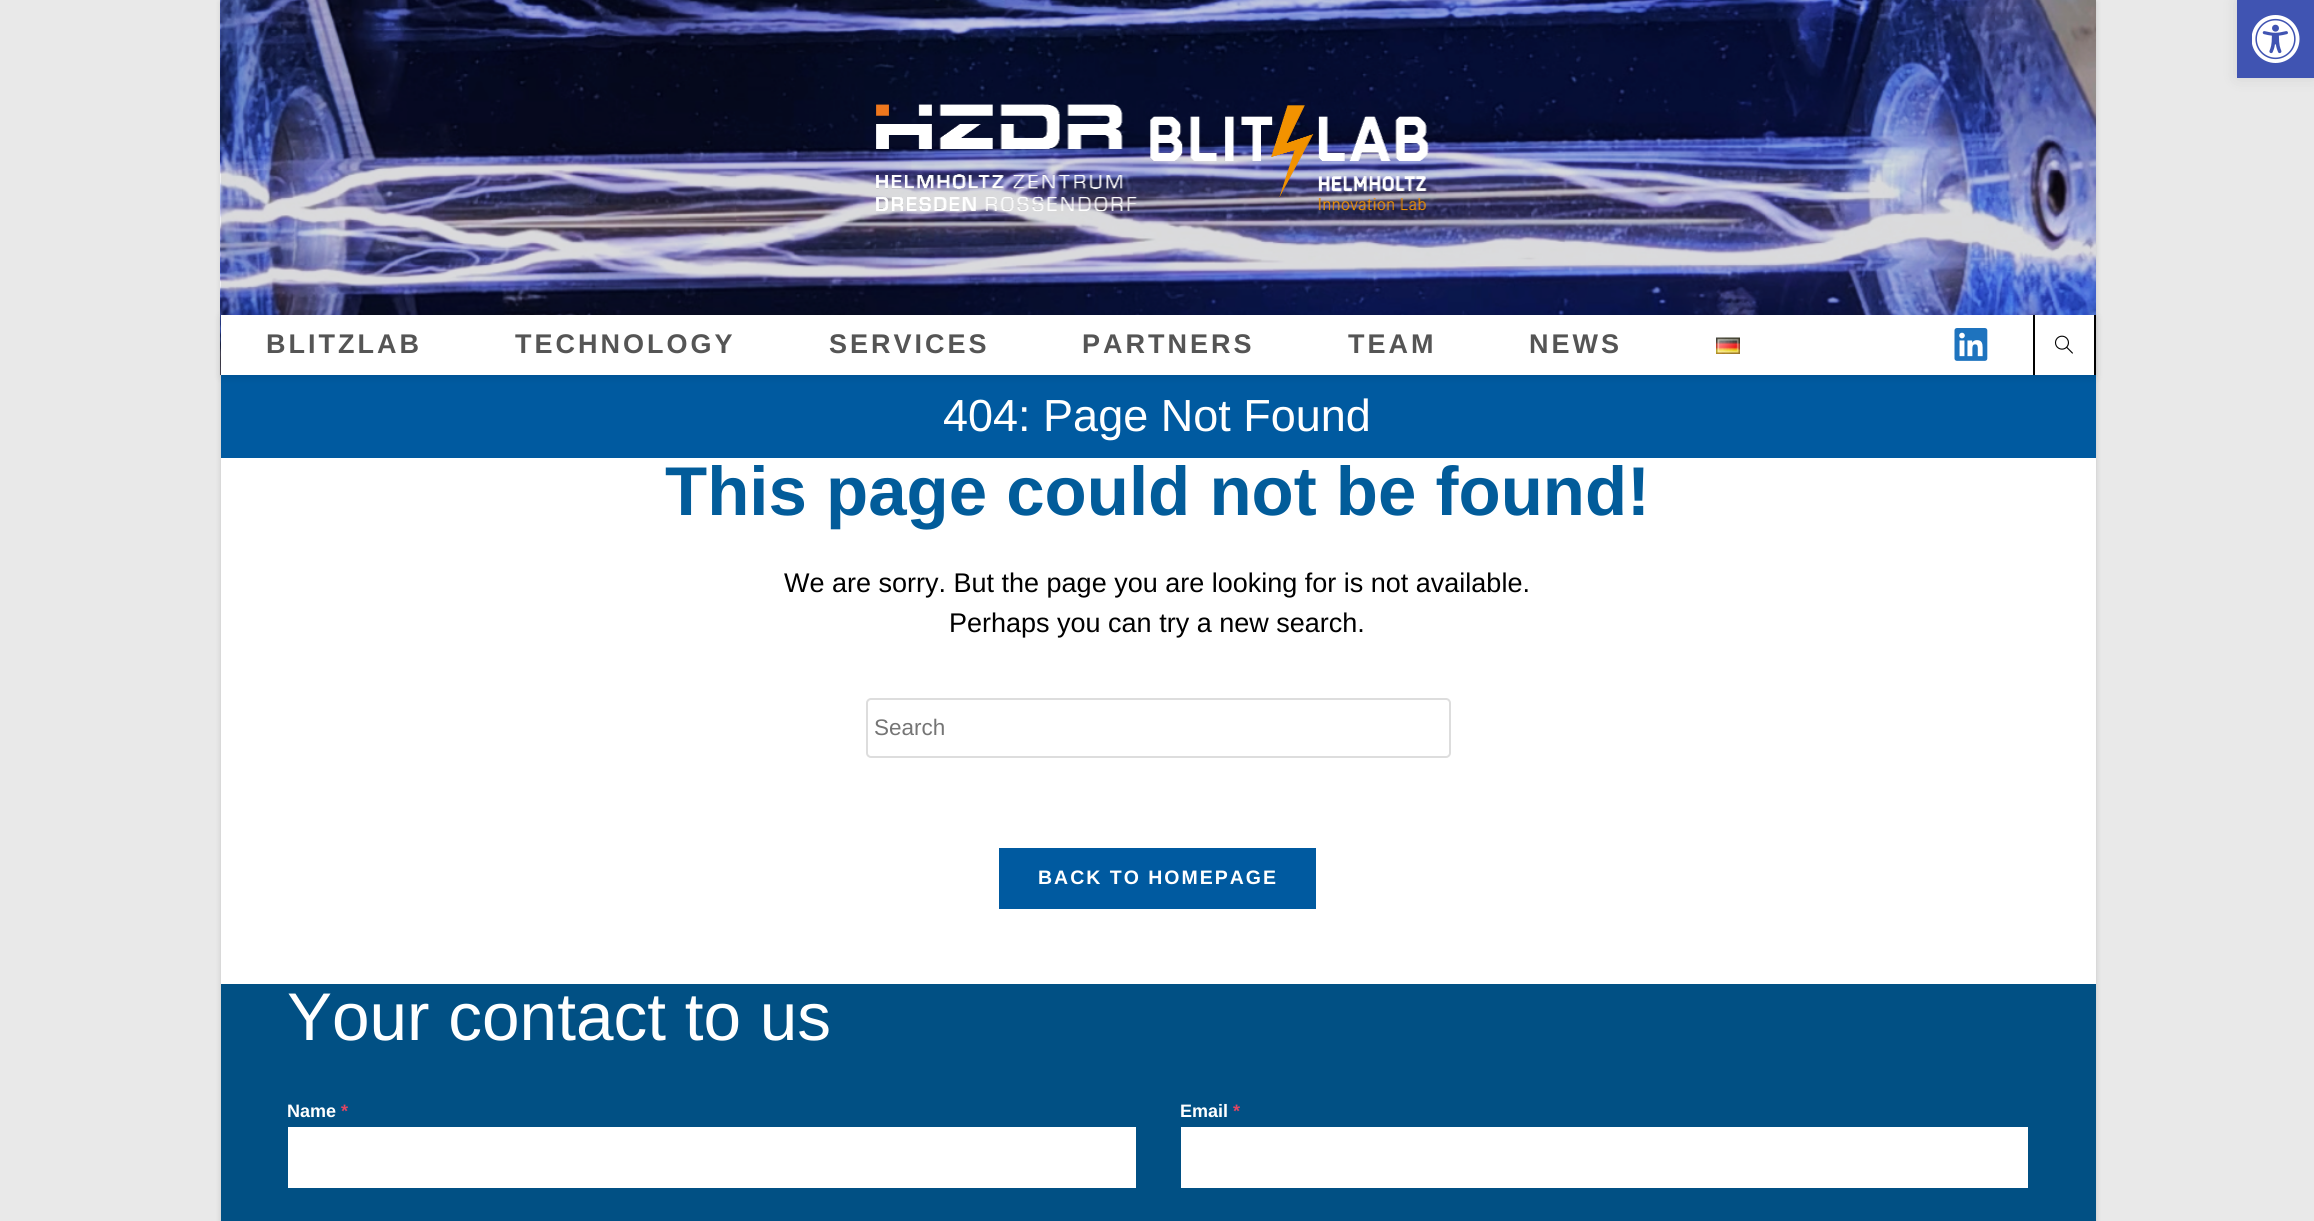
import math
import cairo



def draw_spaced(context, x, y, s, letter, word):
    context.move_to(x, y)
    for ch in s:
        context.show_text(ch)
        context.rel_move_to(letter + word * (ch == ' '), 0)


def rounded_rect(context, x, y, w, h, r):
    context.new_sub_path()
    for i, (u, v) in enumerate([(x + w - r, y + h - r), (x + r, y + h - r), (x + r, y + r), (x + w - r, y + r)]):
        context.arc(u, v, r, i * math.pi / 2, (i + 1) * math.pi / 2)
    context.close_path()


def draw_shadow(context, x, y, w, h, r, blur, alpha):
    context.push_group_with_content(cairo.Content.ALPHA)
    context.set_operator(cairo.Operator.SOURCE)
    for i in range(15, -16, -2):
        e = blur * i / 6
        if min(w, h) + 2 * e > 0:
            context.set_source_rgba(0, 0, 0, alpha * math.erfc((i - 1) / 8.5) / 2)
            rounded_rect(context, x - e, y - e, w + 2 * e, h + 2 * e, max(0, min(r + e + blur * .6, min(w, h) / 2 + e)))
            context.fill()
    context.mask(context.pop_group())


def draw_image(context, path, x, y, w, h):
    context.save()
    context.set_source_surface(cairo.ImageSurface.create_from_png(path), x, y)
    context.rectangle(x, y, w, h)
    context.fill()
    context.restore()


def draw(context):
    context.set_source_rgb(233 / 255, 233 / 255, 233 / 255)
    context.paint()
    context.set_source_rgb(0, 0, 0)
    draw_shadow(context, 2237, 0, 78, 78, 0, 7.5, 0.1)
    context.set_source_rgb(64 / 255, 84 / 255, 178 / 255)
    context.rectangle(2237, 0, 77, 78)
    context.fill()
    draw_image(context, "images/1.png", 2252, 15, 48, 48)
    context.set_source_rgb(0, 0, 0)
    draw_shadow(context, 221, 2, 1875, 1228, 0, 3, 0.15)
    context.set_source_rgb(1, 1, 1)
    context.rectangle(221, 458, 1875, 526)
    context.fill()
    draw_image(context, "images/2.png", 220, 0, 1876, 375)
    draw_image(context, "images/3.png", 876, 104, 553, 108)
    context.set_source_rgb(0, 90 / 255, 160 / 255)
    context.rectangle(221, 375, 1875, 83)
    context.fill()
    context.set_source_rgb(0, 0, 0)
    draw_shadow(context, 221, 317, 1875, 60, 0, 4, 0.1)
    context.set_source_rgb(1, 1, 1)
    context.rectangle(221, 315, 1873, 60)
    context.fill()
    draw_image(context, "images/4.png", 1716, 337, 24, 17)
    draw_image(context, "images/5.png", 1954, 328, 34, 33)
    context.set_source_rgb(0, 0, 0)
    context.rectangle(2094, 315, 2, 60)
    context.fill()
    context.rectangle(2033, 315, 2, 60)
    context.fill()
    draw_image(context, "images/6.png", 2054, 335, 19, 19)
    rounded_rect(context, 867, 699, 583, 58, 4)
    context.set_source_rgb(221 / 255, 221 / 255, 221 / 255)
    context.stroke()
    context.set_source_rgb(0, 90 / 255, 160 / 255)
    context.rectangle(999, 848, 317, 61)
    context.fill()
    context.set_source_rgb(1 / 255, 80 / 255, 132 / 255)
    context.rectangle(221, 984, 1875, 237)
    context.fill()
    context.set_source_rgb(1, 1, 1)
    context.rectangle(288, 1127, 848, 61)
    context.fill()
    context.rectangle(1181, 1127, 847, 61)
    context.fill()
    context.select_font_face("Liberation Sans", cairo.FontSlant.NORMAL, cairo.FontWeight.BOLD)
    context.set_font_size(27)
    context.set_source_rgb(85 / 255, 85 / 255, 85 / 255)
    draw_spaced(context, 266, 353, "BLITZLAB", 3, 0)
    draw_spaced(context, 515, 353, "TECHNOLOGY", 3, 0)
    draw_spaced(context, 829, 353, "SERVICES", 3, 0)
    draw_spaced(context, 1082, 353, "PARTNERS", 3, 0)
    draw_spaced(context, 1348, 353, "TEAM", 3, 0)
    draw_spaced(context, 1529, 353, "NEWS", 3, 0)
    context.select_font_face("Liberation Sans")
    context.set_font_size(45)
    context.set_source_rgb(1, 1, 1)
    context.move_to(943, 431)
    context.show_text("404: Page Not Found")
    context.select_font_face("Liberation Sans", cairo.FontSlant.NORMAL, cairo.FontWeight.BOLD)
    context.set_font_size(69)
    context.set_source_rgb(2 / 255, 92 / 255, 154 / 255)
    context.move_to(665, 515)
    context.show_text("This page could not be found!")
    context.select_font_face("Liberation Sans")
    context.set_font_size(27)
    context.set_source_rgb(0, 0, 0)
    context.move_to(784, 592)
    context.show_text("We are sorry. But the page you are looking for is not available.")
    context.move_to(949, 632)
    context.show_text("Perhaps you can try a new search.")
    context.set_font_size(22.5)
    context.set_source_rgb(117 / 255, 117 / 255, 117 / 255)
    context.move_to(874, 735)
    context.show_text("Search")
    context.select_font_face("Liberation Sans", cairo.FontSlant.NORMAL, cairo.FontWeight.BOLD)
    context.set_font_size(19.5)
    context.set_source_rgb(1, 1, 1)
    draw_spaced(context, 1038, 884, "BACK TO HOMEPAGE", 2, 0)
    context.select_font_face("Liberation Sans")
    context.set_font_size(67.5)
    context.move_to(287, 1040)
    context.show_text("Your contact to us")
    context.select_font_face("Liberation Sans", cairo.FontSlant.NORMAL, cairo.FontWeight.BOLD)
    context.set_font_size(18)
    context.move_to(287, 1117)
    context.show_text("Name")
    context.set_source_rgb(224 / 255, 69 / 255, 98 / 255)
    context.move_to(341, 1117)
    context.show_text("*")
    context.set_source_rgb(1, 1, 1)
    context.move_to(1180, 1117)
    context.show_text("Email")
    context.set_source_rgb(224 / 255, 69 / 255, 98 / 255)
    context.move_to(1233, 1117)
    context.show_text("*")


surface = cairo.ImageSurface(cairo.Format.RGB24, 2314, 1221)
context = cairo.Context(surface)
options = cairo.FontOptions()
options.set_hint_metrics(cairo.HintMetrics.OFF)
options.set_hint_style(cairo.HintStyle.NONE)
context.set_font_options(options)
context.set_miter_limit(4)
draw(context)
surface.write_to_png("out.png")
